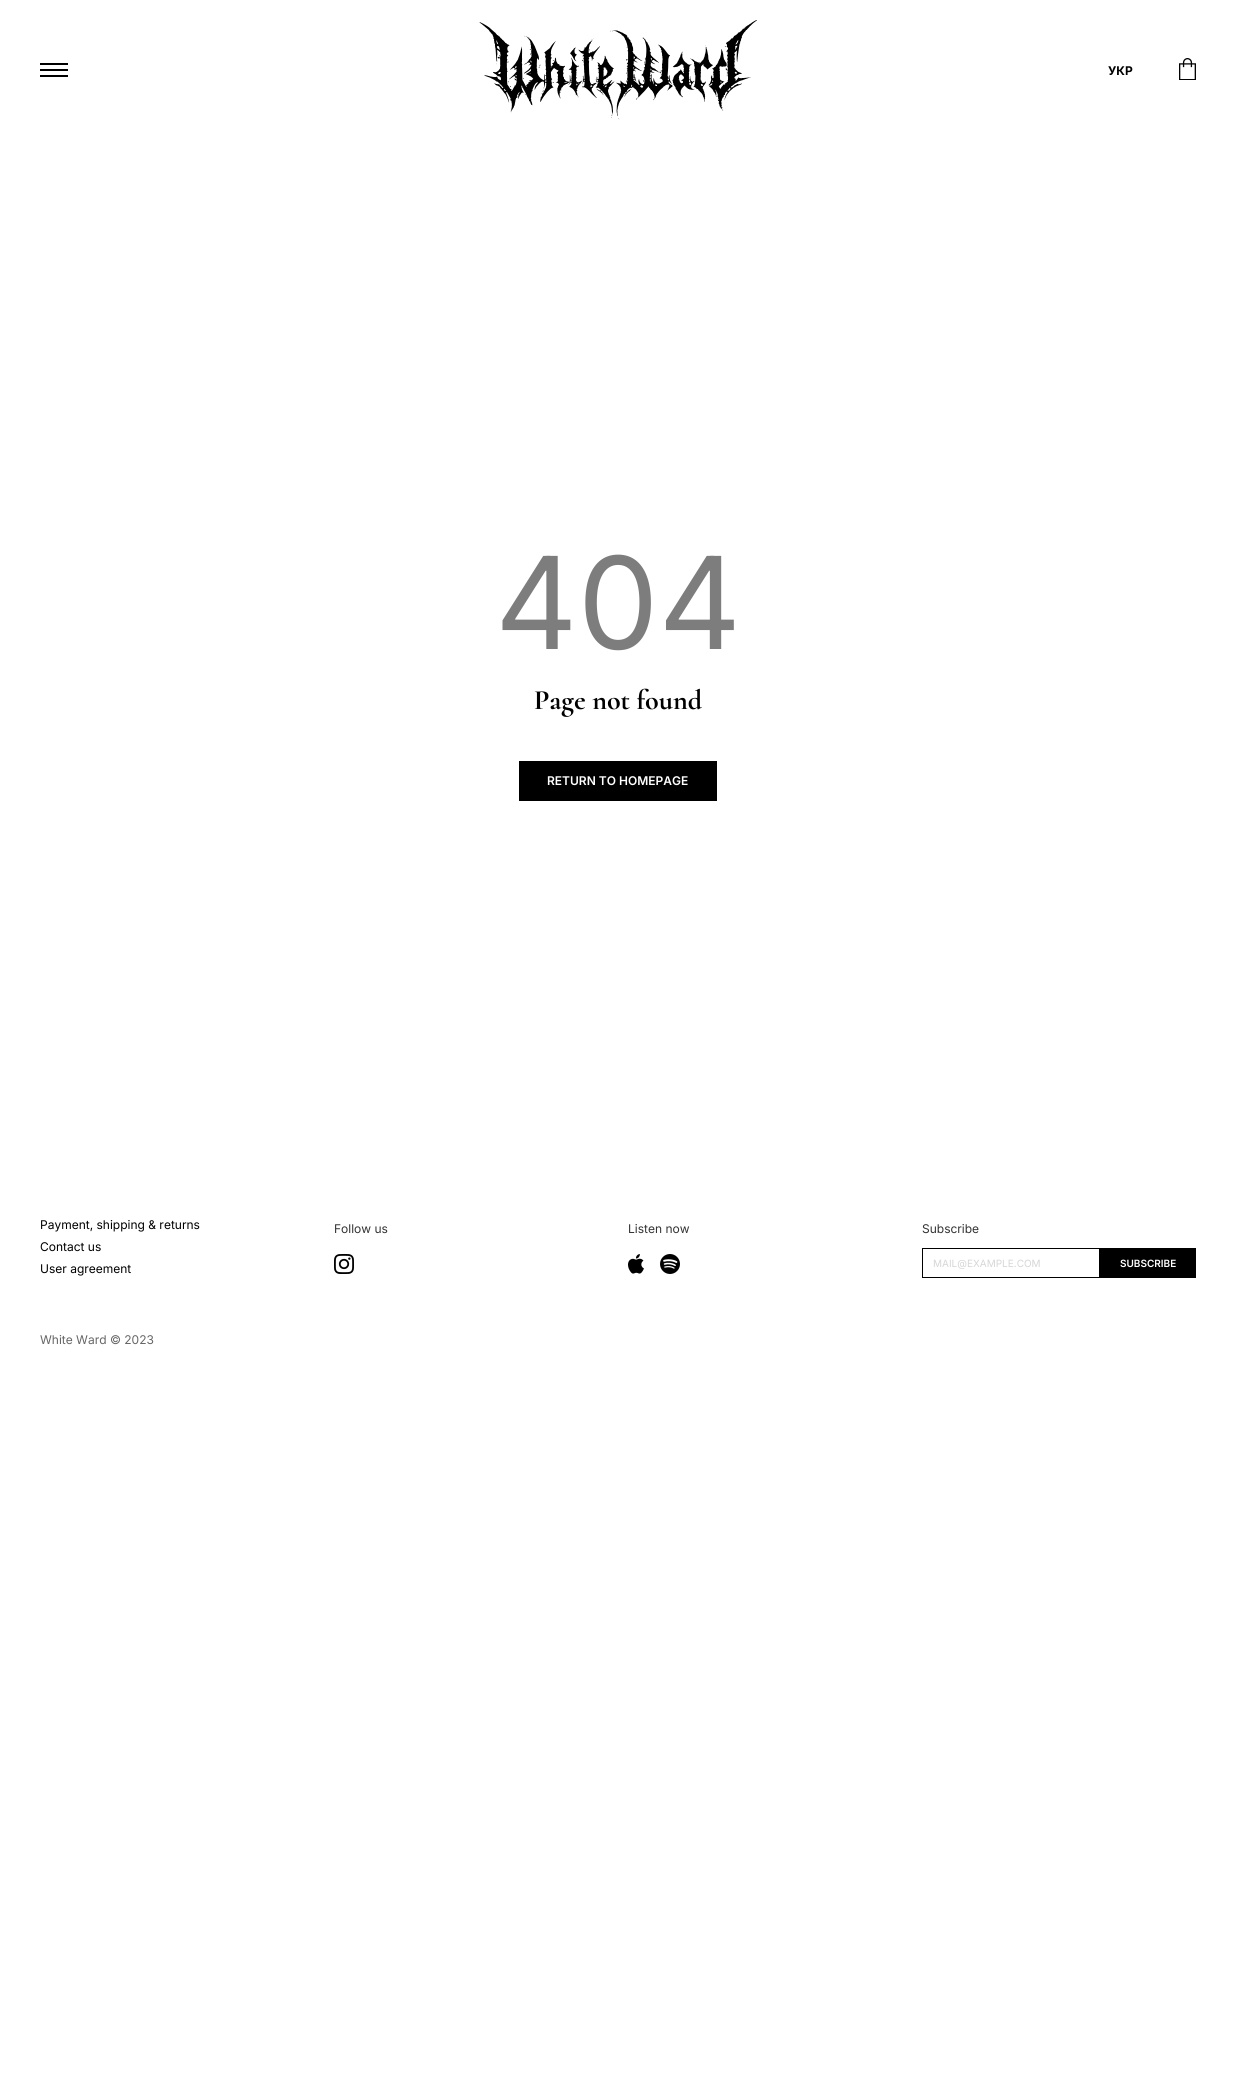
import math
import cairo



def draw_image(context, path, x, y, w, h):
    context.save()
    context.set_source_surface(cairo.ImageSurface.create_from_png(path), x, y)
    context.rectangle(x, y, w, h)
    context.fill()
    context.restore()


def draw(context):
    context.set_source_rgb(1, 1, 1)
    context.paint()
    context.set_source_rgb(0, 0, 0)
    context.rectangle(40, 69, 28, 2)
    context.fill()
    context.rectangle(40, 63, 28, 2)
    context.fill()
    context.rectangle(40, 75, 28, 2)
    context.fill()
    draw_image(context, "images/1.png", 479, 20, 278, 100)
    draw_image(context, "images/2.png", 1179, 58, 17, 22)
    context.rectangle(519, 761, 198, 40)
    context.fill()
    draw_image(context, "images/3.png", 334, 1254, 20, 20)
    draw_image(context, "images/4.png", 628, 1254, 16, 20)
    draw_image(context, "images/5.png", 660, 1254, 20, 20)
    context.rectangle(922.5, 1248.5, 177, 29)
    context.set_line_width(1)
    context.stroke()
    context.rectangle(1100, 1248, 96, 30)
    context.fill()
    context.select_font_face("Inter", cairo.FontSlant.NORMAL, cairo.FontWeight.BOLD)
    context.set_font_size(12)
    context.move_to(1108, 75)
    context.show_text("УКР")
    context.select_font_face("Inter")
    context.set_font_size(128)
    context.set_source_rgb(125 / 255, 125 / 255, 125 / 255)
    context.move_to(495, 649)
    context.show_text("404")
    context.select_font_face("Cormorant Light")
    context.set_font_size(28)
    context.set_source_rgb(0, 0, 0)
    context.move_to(534, 709)
    context.show_text("Page not found")
    context.select_font_face("Inter SemiBold")
    context.set_font_size(12)
    context.set_source_rgb(1, 1, 1)
    context.move_to(547, 785)
    context.show_text("RETURN TO HOMEPAGE")
    context.select_font_face("Inter")
    context.set_source_rgb(0, 0, 0)
    context.move_to(40, 1229)
    context.show_text("Payment, shipping & returns")
    context.move_to(40, 1251)
    context.show_text("Contact us")
    context.move_to(40, 1273)
    context.show_text("User agreement")
    context.set_source_rgb(51 / 255, 51 / 255, 51 / 255)
    context.move_to(334, 1233)
    context.show_text("Follow us")
    context.move_to(628, 1233)
    context.show_text("Listen now")
    context.move_to(922, 1233)
    context.show_text("Subscribe")
    context.set_font_size(10)
    context.set_source_rgb(214 / 255, 214 / 255, 214 / 255)
    context.move_to(933, 1267)
    context.show_text("MAIL@EXAMPLE.COM")
    context.select_font_face("Inter SemiBold")
    context.set_source_rgb(1, 1, 1)
    context.move_to(1120, 1267)
    context.show_text("SUBSCRIBE")
    context.select_font_face("Inter")
    context.set_font_size(12)
    context.set_source_rgb(102 / 255, 102 / 255, 102 / 255)
    context.move_to(40, 1344)
    context.show_text("White Ward © 2023")


surface = cairo.ImageSurface(cairo.Format.RGB24, 1236, 2075)
context = cairo.Context(surface)
options = cairo.FontOptions()
options.set_hint_metrics(cairo.HintMetrics.OFF)
options.set_hint_style(cairo.HintStyle.NONE)
context.set_font_options(options)
context.set_miter_limit(4)
draw(context)
surface.write_to_png("out.png")
